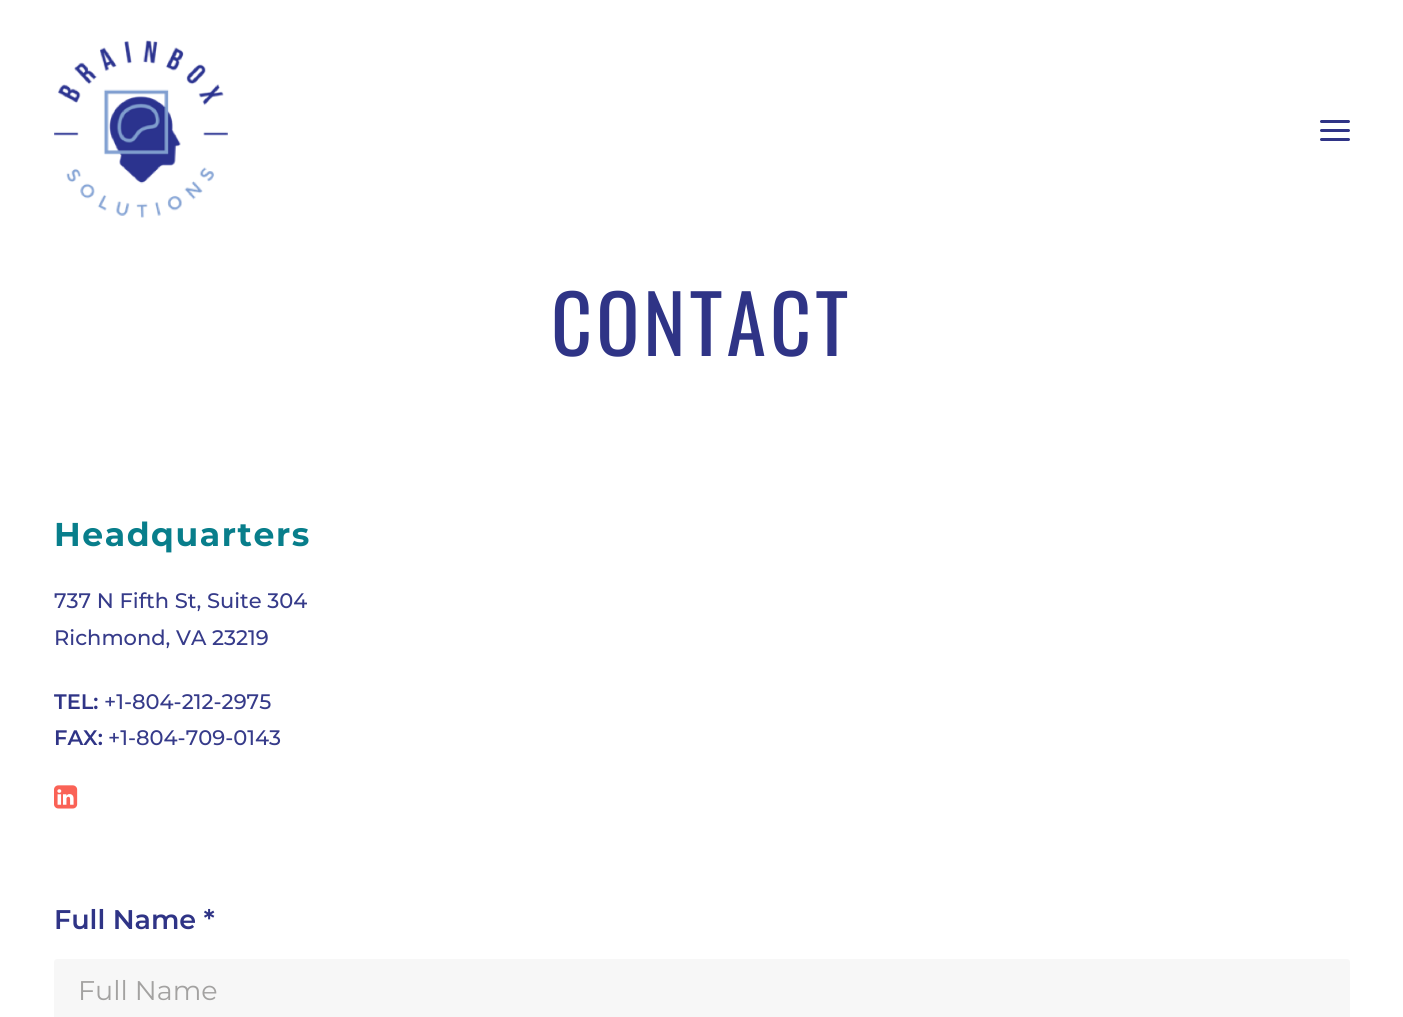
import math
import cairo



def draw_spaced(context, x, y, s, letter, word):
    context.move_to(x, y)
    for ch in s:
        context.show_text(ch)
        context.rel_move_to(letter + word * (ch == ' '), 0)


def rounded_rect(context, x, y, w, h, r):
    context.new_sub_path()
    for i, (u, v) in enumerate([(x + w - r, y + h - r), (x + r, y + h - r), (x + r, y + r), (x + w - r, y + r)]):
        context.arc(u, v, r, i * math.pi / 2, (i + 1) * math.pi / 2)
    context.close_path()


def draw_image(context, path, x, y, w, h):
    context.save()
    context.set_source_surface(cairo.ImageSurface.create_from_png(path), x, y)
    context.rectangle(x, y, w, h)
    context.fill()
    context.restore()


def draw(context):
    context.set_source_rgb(1, 1, 1)
    context.paint()
    draw_image(context, "images/1.png", 54, 40, 174, 178)
    context.set_source_rgb(47 / 255, 52 / 255, 134 / 255)
    rounded_rect(context, 1320, 129, 30, 3, 1.5)
    context.fill()
    rounded_rect(context, 1320, 120, 30, 3, 1.5)
    context.fill()
    rounded_rect(context, 1320, 138, 30, 3, 1.5)
    context.fill()
    draw_image(context, "images/2.png", 54, 785, 24, 24)
    context.set_source_rgb(247 / 255, 247 / 255, 247 / 255)
    rounded_rect(context, 54, 959, 1296, 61, 3)
    context.fill()
    context.select_font_face("Oswald")
    context.set_font_size(80)
    context.set_source_rgb(47 / 255, 52 / 255, 134 / 255)
    draw_spaced(context, 551, 356, "CONTACT", 4, 0)
    context.select_font_face("Montserrat", cairo.FontSlant.NORMAL, cairo.FontWeight.BOLD)
    context.set_font_size(33)
    context.set_source_rgb(8 / 255, 126 / 255, 139 / 255)
    draw_spaced(context, 54, 546, "Headquarters", 1.6, 0)
    context.select_font_face("Montserrat Medium")
    context.set_font_size(21)
    context.set_source_rgb(54 / 255, 59 / 255, 138 / 255)
    context.move_to(54, 608)
    context.show_text("737 N Fifth St, Suite 304")
    context.move_to(54, 645)
    context.show_text("Richmond, VA 23219")
    context.select_font_face("Montserrat SemiBold")
    context.set_source_rgb(47 / 255, 52 / 255, 134 / 255)
    context.move_to(54, 709)
    context.show_text("TEL:")
    context.select_font_face("Montserrat Medium")
    context.set_source_rgb(54 / 255, 59 / 255, 138 / 255)
    context.move_to(104, 709)
    context.show_text("+1-804-212-2975")
    context.select_font_face("Montserrat SemiBold")
    context.set_source_rgb(47 / 255, 52 / 255, 134 / 255)
    context.move_to(54, 745)
    context.show_text("FAX:")
    context.select_font_face("Montserrat Medium")
    context.set_source_rgb(54 / 255, 59 / 255, 138 / 255)
    context.move_to(108, 745)
    context.show_text("+1-804-709-0143")
    context.select_font_face("Montserrat SemiBold")
    context.set_font_size(27)
    context.set_source_rgb(47 / 255, 52 / 255, 134 / 255)
    context.move_to(54, 929)
    context.show_text("Full Name *")
    context.select_font_face("Montserrat")
    context.set_source_rgb(163 / 255, 162 / 255, 161 / 255)
    context.move_to(78, 1000)
    context.show_text("Full Name")


surface = cairo.ImageSurface(cairo.Format.RGB24, 1403, 1017)
context = cairo.Context(surface)
options = cairo.FontOptions()
options.set_hint_metrics(cairo.HintMetrics.OFF)
options.set_hint_style(cairo.HintStyle.NONE)
context.set_font_options(options)
context.set_miter_limit(4)
draw(context)
surface.write_to_png("out.png")
